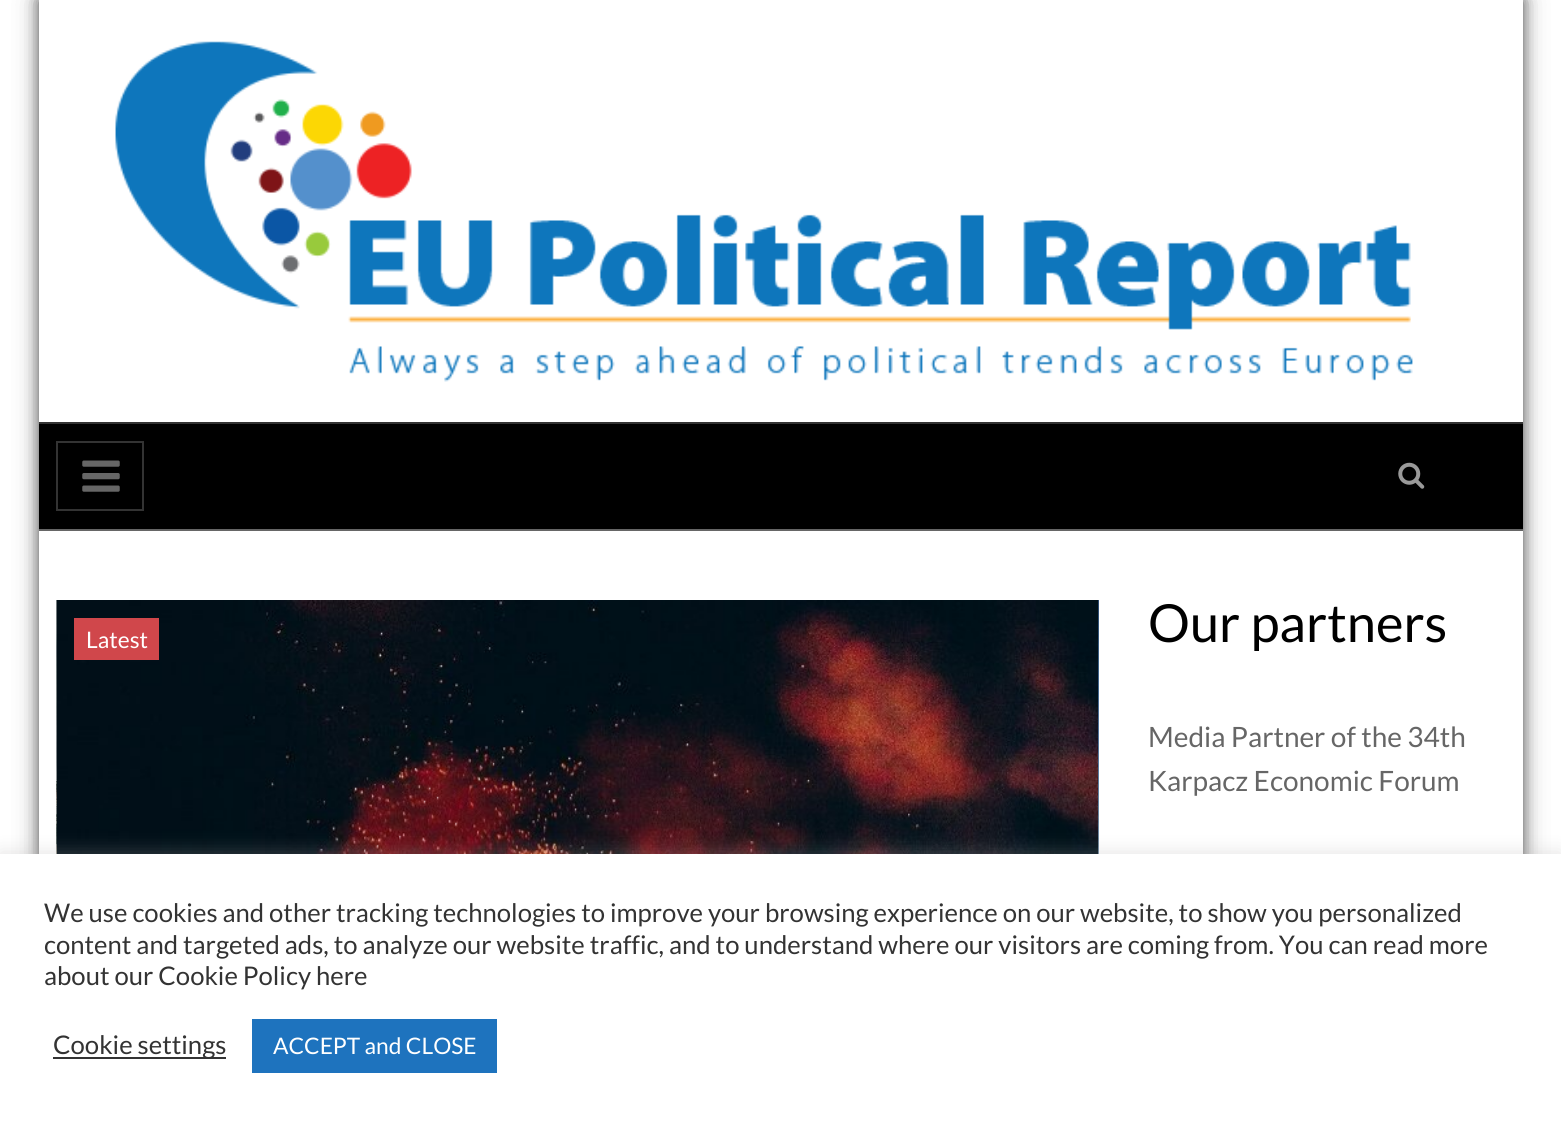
import math
import cairo



def rounded_rect(context, x, y, w, h, r):
    context.new_sub_path()
    for i, (u, v) in enumerate([(x + w - r, y + h - r), (x + r, y + h - r), (x + r, y + r), (x + w - r, y + r)]):
        context.arc(u, v, r, i * math.pi / 2, (i + 1) * math.pi / 2)
    context.close_path()


def draw_shadow(context, x, y, w, h, r, blur, alpha):
    context.push_group_with_content(cairo.Content.ALPHA)
    context.set_operator(cairo.Operator.SOURCE)
    for i in range(15, -16, -2):
        e = blur * i / 6
        if min(w, h) + 2 * e > 0:
            context.set_source_rgba(0, 0, 0, alpha * math.erfc((i - 1) / 8.5) / 2)
            rounded_rect(context, x - e, y - e, w + 2 * e, h + 2 * e, max(0, min(r + e + blur * .6, min(w, h) / 2 + e)))
            context.fill()
    context.mask(context.pop_group())


def draw_image(context, path, x, y, w, h):
    context.save()
    context.set_source_surface(cairo.ImageSurface.create_from_png(path), x, y)
    context.rectangle(x, y, w, h)
    context.fill()
    context.restore()


def draw(context):
    context.set_source_rgb(1, 1, 1)
    context.paint()
    context.save()
    context.set_fill_rule(cairo.FillRule.EVEN_ODD)
    context.new_path()
    context.move_to(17, 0)
    context.line_to(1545, 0)
    context.line_to(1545, 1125)
    context.line_to(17, 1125)
    context.close_path()
    context.move_to(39, 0)
    context.line_to(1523, 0)
    context.line_to(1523, 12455)
    context.line_to(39, 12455)
    context.close_path()
    context.clip()
    context.set_source_rgb(0, 0, 0)
    draw_shadow(context, 39, 0, 1484, 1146, 0, 7, 0.5)
    context.restore()
    context.save()
    context.set_fill_rule(cairo.FillRule.EVEN_ODD)
    context.new_path()
    context.move_to(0, 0)
    context.line_to(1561, 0)
    context.line_to(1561, 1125)
    context.line_to(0, 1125)
    context.close_path()
    context.move_to(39, 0)
    context.line_to(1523, 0)
    context.line_to(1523, 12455)
    context.line_to(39, 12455)
    context.close_path()
    context.clip()
    context.set_source_rgb(0, 0, 0)
    draw_shadow(context, 39, 0, 1484, 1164, 0, 13, 0.35)
    context.restore()
    context.set_source_rgb(1, 1, 1)
    context.rectangle(1522, 0, 1, 422)
    context.fill()
    context.set_source_rgb(51 / 255, 51 / 255, 51 / 255)
    context.rectangle(39, 422, 1484, 2)
    context.fill()
    draw_image(context, "images/1.png", 115, 41, 1298, 341)
    context.set_source_rgb(0, 0, 0)
    context.rectangle(39, 424, 1484, 105)
    context.fill()
    context.set_source_rgb(102 / 255, 102 / 255, 102 / 255)
    context.rectangle(39, 529, 1484, 2)
    context.fill()
    context.rectangle(57, 442, 86, 68)
    context.set_source_rgb(51 / 255, 51 / 255, 51 / 255)
    context.stroke()
    draw_image(context, "images/2.png", 82, 460, 38, 32)
    draw_image(context, "images/3.png", 1398, 462, 27, 27)
    draw_image(context, "images/4.png", 56, 600, 1, 254)
    draw_image(context, "images/5.png", 57, 600, 1041, 254)
    context.set_source_rgb(208 / 255, 71 / 255, 75 / 255)
    context.rectangle(74, 618, 85, 42)
    context.fill()
    draw_image(context, "images/6.png", 1098, 600, 1, 254)
    context.set_source_rgb(172 / 255, 171 / 255, 171 / 255)
    draw_shadow(context, 0, 852, 1561, 272, 0, 9, 0.3)
    context.set_source_rgb(1, 1, 1)
    context.rectangle(0, 854, 1561, 271)
    context.fill()
    context.set_source_rgb(51 / 255, 51 / 255, 51 / 255)
    context.rectangle(53, 1057, 173, 2)
    context.fill()
    context.set_source_rgb(30 / 255, 115 / 255, 190 / 255)
    context.rectangle(252, 1019, 245, 54)
    context.fill()
    context.select_font_face("Lato")
    context.set_font_size(22.75)
    context.set_source_rgb(1, 1, 1)
    context.move_to(86, 648)
    context.show_text("Latest")
    context.set_font_size(52.5)
    context.set_source_rgb(0, 0, 0)
    context.move_to(1148, 642)
    context.show_text("Our partners")
    context.set_font_size(28)
    context.set_source_rgb(102 / 255, 102 / 255, 102 / 255)
    context.move_to(1148, 747)
    context.show_text("Media Partner of the 34th")
    context.move_to(1148, 791)
    context.show_text("Karpacz Economic Forum")
    context.set_font_size(25.67)
    context.set_source_rgb(51 / 255, 51 / 255, 51 / 255)
    context.move_to(44, 922)
    context.show_text("We use cookies and other tracking technologies to improve your browsing experience on our website, to show you personalized")
    context.move_to(44, 954)
    context.show_text("content and targeted ads, to analyze our website traffic, and to understand where our visitors are coming from. You can read more")
    context.move_to(44, 985)
    context.show_text("about our Cookie Policy here")
    context.move_to(53, 1054)
    context.show_text("Cookie settings")
    context.set_font_size(22.75)
    context.set_source_rgb(1, 1, 1)
    context.move_to(273, 1054)
    context.show_text("ACCEPT and CLOSE")


surface = cairo.ImageSurface(cairo.Format.RGB24, 1561, 1125)
context = cairo.Context(surface)
options = cairo.FontOptions()
options.set_hint_metrics(cairo.HintMetrics.OFF)
options.set_hint_style(cairo.HintStyle.NONE)
context.set_font_options(options)
context.set_miter_limit(4)
draw(context)
surface.write_to_png("out.png")
